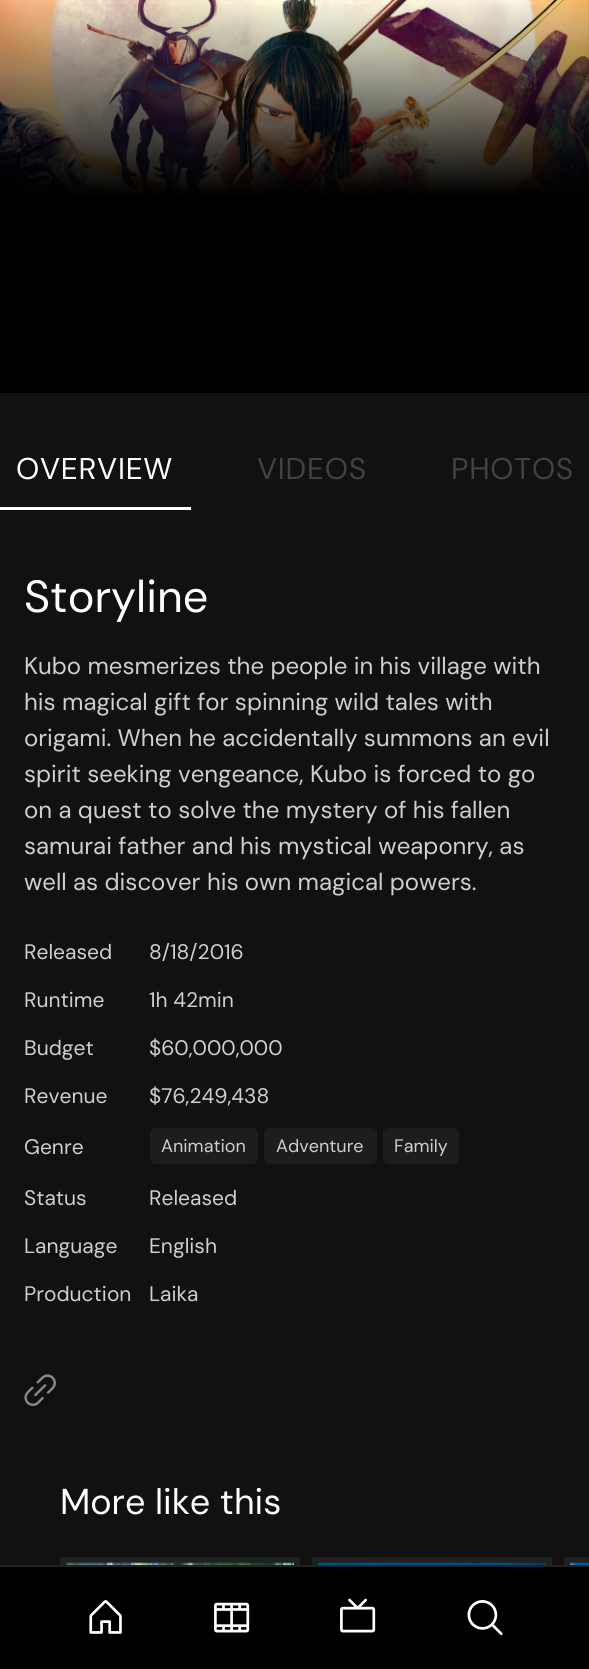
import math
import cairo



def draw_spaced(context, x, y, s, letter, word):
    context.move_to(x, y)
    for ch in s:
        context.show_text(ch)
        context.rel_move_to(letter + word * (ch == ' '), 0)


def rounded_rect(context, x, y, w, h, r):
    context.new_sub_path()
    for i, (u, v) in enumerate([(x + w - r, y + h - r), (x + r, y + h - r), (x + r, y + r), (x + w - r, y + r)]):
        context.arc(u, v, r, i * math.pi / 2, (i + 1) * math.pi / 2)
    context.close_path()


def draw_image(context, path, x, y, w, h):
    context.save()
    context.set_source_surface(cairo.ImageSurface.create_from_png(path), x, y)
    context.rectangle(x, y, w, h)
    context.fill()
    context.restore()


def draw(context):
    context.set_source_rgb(17 / 255, 17 / 255, 17 / 255)
    context.paint()
    context.set_source_rgb(0, 0, 0)
    context.rectangle(588, 0, 1, 195)
    context.fill()
    draw_image(context, "images/1.png", 0, 0, 589, 195)
    gradient = cairo.LinearGradient(295, 393, 295, 0)
    gradient.add_color_stop_rgba(0, 0, 0, 0, 1)
    gradient.add_color_stop_rgba(0.5, 0, 0, 0, 1)
    gradient.add_color_stop_rgba(1, 0, 0, 0, 0)
    context.set_source(gradient)
    context.rectangle(0, 4, 589, 389)
    context.fill()
    context.set_source_rgb(1, 1, 1)
    context.rectangle(0, 507, 191, 3)
    context.fill()
    context.set_source_rgb(28 / 255, 29 / 255, 30 / 255)
    rounded_rect(context, 150, 1128, 108, 36, 6)
    context.fill()
    rounded_rect(context, 264, 1128, 113, 36, 6)
    context.fill()
    rounded_rect(context, 383, 1128, 76, 36, 6)
    context.fill()
    draw_image(context, "images/2.png", 24, 1374, 32, 32)
    context.set_source_rgb(31 / 255, 32 / 255, 33 / 255)
    context.rectangle(60, 1557, 240, 8)
    context.fill()
    draw_image(context, "images/3.png", 66, 1562, 228, 3)
    context.rectangle(312, 1557, 240, 8)
    context.fill()
    draw_image(context, "images/4.png", 318, 1562, 228, 3)
    context.rectangle(564, 1557, 25, 8)
    context.fill()
    draw_image(context, "images/5.png", 570, 1562, 19, 3)
    context.set_source_rgb(0, 0, 0)
    context.rectangle(0, 1567, 589, 102)
    context.fill()
    context.set_source_rgb(31 / 255, 33 / 255, 35 / 255)
    context.rectangle(0, 1565, 589, 2)
    context.fill()
    draw_image(context, "images/6.png", 89, 1600, 33, 34)
    draw_image(context, "images/7.png", 214, 1602, 36, 31)
    draw_image(context, "images/8.png", 340, 1598, 36, 35)
    draw_image(context, "images/9.png", 467, 1600, 36, 36)
    context.select_font_face("DM Sans")
    context.set_font_size(30)
    context.set_source_rgb(1, 1, 1)
    draw_spaced(context, 16, 479, "OVERVIEW", 0.75, 0)
    context.set_source_rgb(65 / 255, 65 / 255, 65 / 255)
    draw_spaced(context, 257, 479, "VIDEOS", 0.75, 0)
    draw_spaced(context, 451, 479, "PHOTOS", 0.75, 0)
    context.set_font_size(45)
    context.set_source_rgb(1, 1, 1)
    context.move_to(24, 612)
    context.show_text("Storyline")
    context.set_font_size(24)
    context.set_source_rgb(207 / 255, 207 / 255, 207 / 255)
    context.move_to(24, 674)
    context.show_text("Kubo mesmerizes the people in his village with")
    context.move_to(24, 710)
    context.show_text("his magical gift for spinning wild tales with")
    context.move_to(24, 746)
    context.show_text("origami. When he accidentally summons an evil")
    context.move_to(24, 782)
    context.show_text("spirit seeking vengeance, Kubo is forced to go")
    context.move_to(24, 818)
    context.show_text("on a quest to solve the mystery of his fallen")
    context.move_to(24, 854)
    context.show_text("samurai father and his mystical weaponry, as")
    context.move_to(24, 890)
    context.show_text("well as discover his own magical powers.")
    context.set_font_size(21)
    context.move_to(24, 959)
    context.show_text("Released")
    context.move_to(149, 959)
    context.show_text("8/18/2016")
    context.move_to(24, 1007)
    context.show_text("Runtime")
    context.move_to(149, 1007)
    context.show_text("1h 42min")
    context.move_to(24, 1055)
    context.show_text("Budget")
    context.move_to(149, 1055)
    context.show_text("$60,000,000")
    context.move_to(24, 1103)
    context.show_text("Revenue")
    context.move_to(149, 1103)
    context.show_text("$76,249,438")
    context.move_to(24, 1154)
    context.show_text("Genre")
    context.set_font_size(18)
    context.move_to(161, 1152)
    context.show_text("Animation")
    context.move_to(276, 1152)
    context.show_text("Adventure")
    context.move_to(394, 1152)
    context.show_text("Family")
    context.set_font_size(21)
    context.move_to(24, 1205)
    context.show_text("Status")
    context.move_to(149, 1205)
    context.show_text("Released")
    context.move_to(24, 1253)
    context.show_text("Language")
    context.move_to(149, 1253)
    context.show_text("English")
    context.move_to(24, 1301)
    context.show_text("Production")
    context.move_to(149, 1301)
    context.show_text("Laika")
    context.set_font_size(36)
    context.set_source_rgb(1, 1, 1)
    context.move_to(60, 1514)
    context.show_text("More like this")


surface = cairo.ImageSurface(cairo.Format.RGB24, 589, 1669)
context = cairo.Context(surface)
options = cairo.FontOptions()
options.set_hint_metrics(cairo.HintMetrics.OFF)
options.set_hint_style(cairo.HintStyle.NONE)
context.set_font_options(options)
context.set_miter_limit(4)
draw(context)
surface.write_to_png("out.png")
